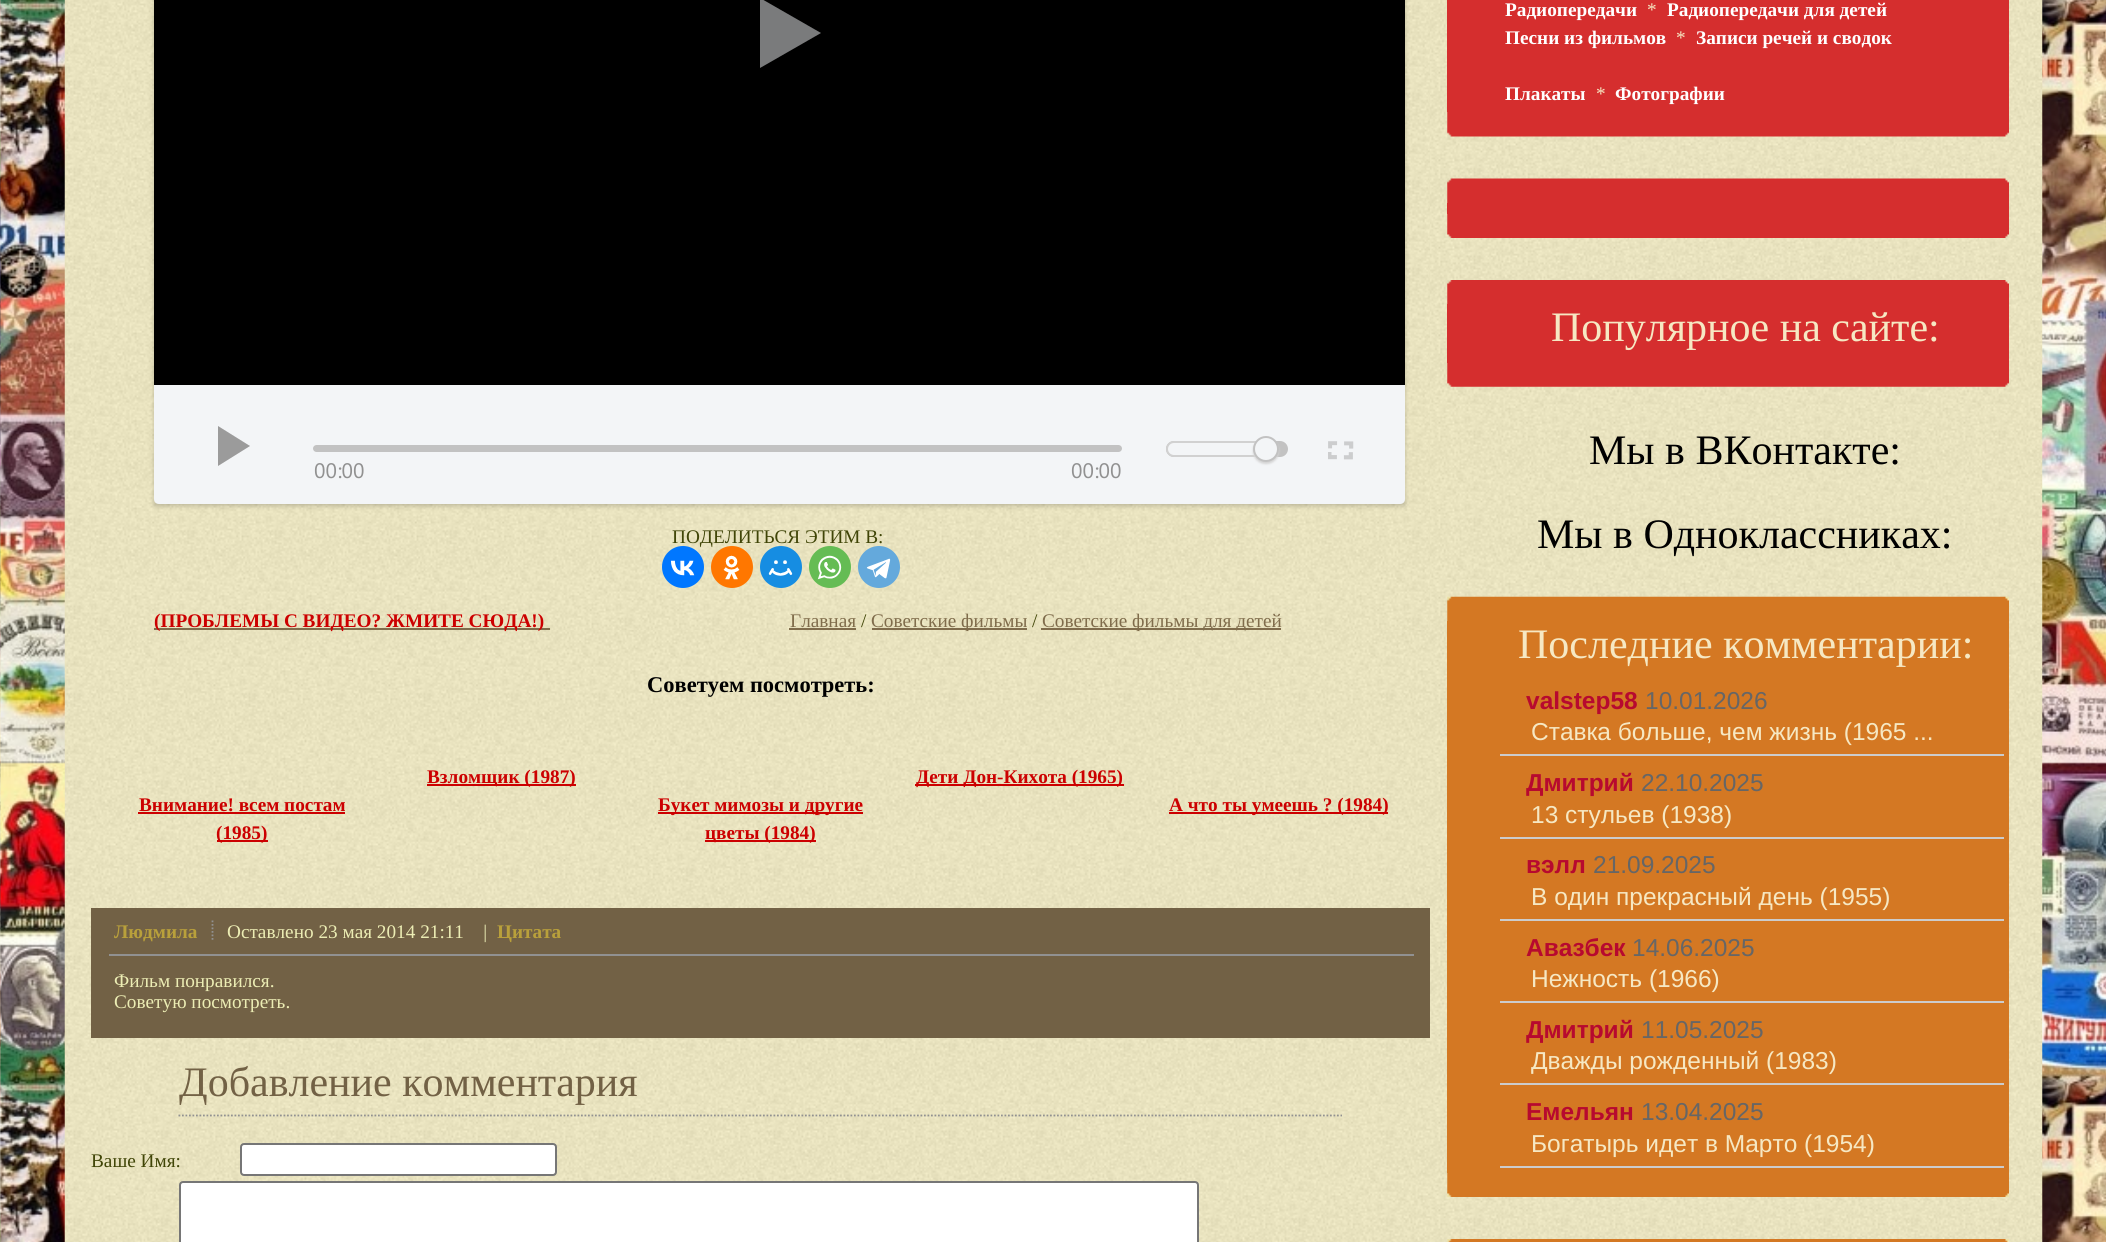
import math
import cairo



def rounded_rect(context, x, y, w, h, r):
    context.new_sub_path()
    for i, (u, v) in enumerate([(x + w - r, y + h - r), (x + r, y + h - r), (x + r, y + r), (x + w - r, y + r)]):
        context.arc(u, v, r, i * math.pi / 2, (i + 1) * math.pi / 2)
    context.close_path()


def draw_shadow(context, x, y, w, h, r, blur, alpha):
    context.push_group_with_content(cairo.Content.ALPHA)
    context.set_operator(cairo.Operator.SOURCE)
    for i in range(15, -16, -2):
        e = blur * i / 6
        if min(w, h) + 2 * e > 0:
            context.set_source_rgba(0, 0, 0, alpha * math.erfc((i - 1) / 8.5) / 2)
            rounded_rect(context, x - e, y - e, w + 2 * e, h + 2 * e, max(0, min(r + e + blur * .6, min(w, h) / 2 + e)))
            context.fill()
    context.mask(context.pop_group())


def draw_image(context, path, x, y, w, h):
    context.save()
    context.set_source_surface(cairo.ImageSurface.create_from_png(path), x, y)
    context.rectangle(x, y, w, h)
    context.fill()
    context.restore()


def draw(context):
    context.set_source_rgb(1, 1, 1)
    context.paint()
    draw_image(context, "images/1.png", 0, 0, 2106, 1242)
    draw_image(context, "images/2.png", 64, 0, 1979, 1242)
    draw_image(context, "images/3.png", 91, 0, 1339, 630)
    context.set_source_rgb(0, 0, 0)
    draw_shadow(context, 154, -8, 1251, 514, 0, 2.5, 0.2)
    context.set_source_rgb(0, 0, 0)
    context.rectangle(154, 0, 1251, 385)
    context.fill()
    context.set_source_rgb(122 / 255, 123 / 255, 124 / 255)
    context.new_path()
    context.move_to(760, 68)
    context.line_to(760, -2)
    context.line_to(821, 33)
    context.close_path()
    context.fill()
    context.set_source_rgb(243 / 255, 245 / 255, 247 / 255)
    context.new_path()
    context.move_to(154, 385)
    context.line_to(1405, 385)
    context.line_to(1405, 499)
    context.curve_to(1405, 502, 1403, 504, 1400, 504)
    context.line_to(159, 504)
    context.curve_to(156, 504, 154, 502, 154, 499)
    context.close_path()
    context.fill()
    context.set_source_rgb(155 / 255, 155 / 255, 155 / 255)
    context.new_path()
    context.move_to(218, 426)
    context.line_to(218, 466)
    context.line_to(250, 446)
    context.close_path()
    context.fill()
    context.set_source_rgb(194 / 255, 194 / 255, 194 / 255)
    rounded_rect(context, 1166, 441, 122, 16, 8)
    context.fill()
    context.set_source_rgb(243 / 255, 245 / 255, 247 / 255)
    rounded_rect(context, 1167, 442, 99, 14, 7)
    context.fill_preserve()
    context.set_source_rgb(209 / 255, 209 / 255, 209 / 255)
    context.stroke()
    context.set_source_rgb(212 / 255, 212 / 255, 212 / 255)
    draw_shadow(context, 1253, 438, 26, 26, 13, 1, 1)
    context.set_source_rgb(243 / 255, 245 / 255, 247 / 255)
    context.arc(1266, 449, 12, 0, 2 * math.pi)
    context.fill_preserve()
    context.set_source_rgb(194 / 255, 194 / 255, 194 / 255)
    context.stroke()
    draw_image(context, "images/4.png", 1328, 441, 26, 19)
    rounded_rect(context, 313, 445, 809, 7, 3.5)
    context.fill()
    context.set_source_rgb(127 / 255, 108 / 255, 75 / 255)
    context.rectangle(154, 628, 396, 2)
    context.fill()
    context.rectangle(789, 628, 67, 2)
    context.fill()
    context.rectangle(872, 628, 155, 2)
    context.fill()
    context.rectangle(1041, 628, 240, 2)
    context.fill()
    context.set_source_rgb(204 / 255, 0, 0)
    context.rectangle(427, 784, 149, 2)
    context.fill()
    context.rectangle(915, 784, 209, 2)
    context.fill()
    context.rectangle(138, 812, 207, 2)
    context.fill()
    context.rectangle(217, 840, 51, 2)
    context.fill()
    context.rectangle(658, 812, 205, 2)
    context.fill()
    context.rectangle(705, 840, 111, 2)
    context.fill()
    context.rectangle(1169, 812, 219, 2)
    context.fill()
    context.set_source_rgb(114 / 255, 97 / 255, 69 / 255)
    context.rectangle(91, 908, 1339, 130)
    context.fill()
    context.new_path()
    context.move_to(212.5, 920.5)
    context.line_to(212.5, 941.5)
    context.set_source_rgb(145 / 255, 145 / 255, 145 / 255)
    context.set_line_width(1.8)
    context.set_dash([1.75, 1.75])
    context.stroke()
    context.rectangle(109, 954, 1305, 2)
    context.fill()
    context.new_path()
    context.move_to(178.5, 1115.5)
    context.line_to(1342, 1115.5)
    context.stroke()
    context.set_source_rgb(1, 1, 1)
    rounded_rect(context, 241, 1144, 315, 31, 3)
    context.fill_preserve()
    context.set_source_rgb(118 / 255, 118 / 255, 118 / 255)
    context.set_line_width(2)
    context.set_dash([])
    context.stroke()
    context.set_source_rgb(1, 1, 1)
    rounded_rect(context, 180, 1182, 1018, 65, 3)
    context.fill_preserve()
    context.set_source_rgb(118 / 255, 118 / 255, 118 / 255)
    context.stroke()
    context.set_source_rgb(213 / 255, 46 / 255, 46 / 255)
    context.rectangle(1447, 0, 562, 112)
    context.fill()
    draw_image(context, "images/10.png", 1447, 112, 562, 25)
    draw_image(context, "images/11.png", 1447, 178, 562, 25)
    context.rectangle(1447, 203, 562, 11)
    context.fill()
    draw_image(context, "images/12.png", 1447, 214, 562, 24)
    draw_image(context, "images/13.png", 1447, 280, 562, 24)
    context.rectangle(1447, 304, 562, 59)
    context.fill()
    draw_image(context, "images/14.png", 1447, 363, 562, 24)
    draw_image(context, "images/15.png", 1447, 596, 562, 25)
    context.set_source_rgb(212 / 255, 120 / 255, 35 / 255)
    context.rectangle(1447, 621, 562, 552)
    context.fill()
    context.set_source_rgb(204 / 255, 204 / 255, 204 / 255)
    context.rectangle(1500, 754, 504, 2)
    context.fill()
    context.rectangle(1500, 837, 504, 2)
    context.fill()
    context.rectangle(1500, 919, 504, 2)
    context.fill()
    context.rectangle(1500, 1001, 504, 2)
    context.fill()
    context.rectangle(1500, 1083, 504, 2)
    context.fill()
    context.rectangle(1500, 1166, 504, 2)
    context.fill()
    draw_image(context, "images/16.png", 1447, 1173, 562, 24)
    draw_image(context, "images/17.png", 1447, 1239, 562, 3)
    context.select_font_face("PT Sans")
    context.set_font_size(21)
    context.set_source_rgb(145 / 255, 145 / 255, 145 / 255)
    context.move_to(314, 478)
    context.show_text("00:00")
    context.move_to(1071, 478)
    context.show_text("00:00")
    context.select_font_face("Liberation Serif")
    context.set_font_size(19.25)
    context.set_source_rgb(64 / 255, 69 / 255, 7 / 255)
    context.move_to(672, 543)
    context.show_text("ПОДЕЛИТЬСЯ ЭТИМ В:")
    context.set_source_rgb(0, 119 / 255, 1)
    context.new_path()
    context.arc(683, 567, 21, 0, 2 * math.pi)
    context.fill()
    draw_image(context, "images/5.png", 670, 560, 25, 16)
    context.set_source_rgb(1, 119 / 255, 0)
    context.arc(732, 567, 21, 0, 2 * math.pi)
    context.fill()
    draw_image(context, "images/6.png", 723, 555, 17, 25)
    context.set_source_rgb(22 / 255, 141 / 255, 226 / 255)
    context.arc(781, 567, 21, 0, 2 * math.pi)
    context.fill()
    draw_image(context, "images/7.png", 768, 560, 25, 16)
    context.set_source_rgb(101 / 255, 188 / 255, 84 / 255)
    context.arc(830, 567, 21, 0, 2 * math.pi)
    context.fill()
    draw_image(context, "images/8.png", 817, 555, 25, 25)
    context.set_source_rgb(100 / 255, 169 / 255, 220 / 255)
    context.arc(879, 567, 21, 0, 2 * math.pi)
    context.fill()
    draw_image(context, "images/9.png", 866, 558, 25, 21)
    context.select_font_face("Liberation Serif", cairo.FontSlant.NORMAL, cairo.FontWeight.BOLD)
    context.set_source_rgb(204 / 255, 0, 0)
    context.move_to(154, 627)
    context.show_text("(ПРОБЛЕМЫ С ВИДЕО? ЖМИТЕ СЮДА!)")
    context.select_font_face("Liberation Serif")
    context.set_source_rgb(127 / 255, 108 / 255, 75 / 255)
    context.move_to(790, 627)
    context.show_text("Главная")
    context.set_source_rgb(64 / 255, 69 / 255, 7 / 255)
    context.move_to(861, 627)
    context.show_text("/")
    context.set_source_rgb(127 / 255, 108 / 255, 75 / 255)
    context.move_to(871, 627)
    context.show_text("Советские фильмы")
    context.set_source_rgb(64 / 255, 69 / 255, 7 / 255)
    context.move_to(1032, 627)
    context.show_text("/")
    context.set_source_rgb(127 / 255, 108 / 255, 75 / 255)
    context.move_to(1042, 627)
    context.show_text("Советские фильмы для детей")
    context.select_font_face("Liberation Serif", cairo.FontSlant.NORMAL, cairo.FontWeight.BOLD)
    context.set_font_size(22.5)
    context.set_source_rgb(0, 0, 0)
    context.move_to(647, 692)
    context.show_text("Советуем посмотреть:")
    context.set_font_size(19.25)
    context.set_source_rgb(204 / 255, 0, 0)
    context.move_to(427, 783)
    context.show_text("Взломщик (1987)")
    context.move_to(916, 783)
    context.show_text("Дети Дон-Кихота (1965)")
    context.move_to(139, 811)
    context.show_text("Внимание! всем постам")
    context.move_to(216, 839)
    context.show_text("(1985)")
    context.move_to(658, 811)
    context.show_text("Букет мимозы и другие")
    context.move_to(705, 839)
    context.show_text("цветы (1984)")
    context.move_to(1169, 811)
    context.show_text("А что ты умеешь ? (1984)")
    context.set_source_rgb(185 / 255, 160 / 255, 59 / 255)
    context.move_to(114, 938)
    context.show_text("Людмила")
    context.select_font_face("Liberation Serif")
    context.set_source_rgb(236 / 255, 237 / 255, 180 / 255)
    context.move_to(227, 938)
    context.show_text("Оставлено 23 мая 2014 21:11    |")
    context.select_font_face("Liberation Serif", cairo.FontSlant.NORMAL, cairo.FontWeight.BOLD)
    context.set_source_rgb(185 / 255, 160 / 255, 59 / 255)
    context.move_to(497, 938)
    context.show_text("Цитата")
    context.select_font_face("Liberation Serif")
    context.set_source_rgb(236 / 255, 237 / 255, 180 / 255)
    context.move_to(114, 987)
    context.show_text("Фильм понравился.")
    context.move_to(114, 1008)
    context.show_text("Советую посмотреть.")
    context.set_font_size(42)
    context.set_source_rgb(114 / 255, 97 / 255, 69 / 255)
    context.move_to(179, 1096)
    context.show_text("Добавление комментария")
    context.set_font_size(19.25)
    context.set_source_rgb(64 / 255, 69 / 255, 7 / 255)
    context.move_to(91, 1167)
    context.show_text("Ваше Имя:")
    context.select_font_face("Liberation Serif", cairo.FontSlant.NORMAL, cairo.FontWeight.BOLD)
    context.set_source_rgb(1, 1, 1)
    context.move_to(1505, 16)
    context.show_text("Радиопередачи")
    context.select_font_face("Liberation Serif")
    context.set_source_rgb(246 / 255, 232 / 255, 195 / 255)
    context.move_to(1647, 16)
    context.show_text("*")
    context.select_font_face("Liberation Serif", cairo.FontSlant.NORMAL, cairo.FontWeight.BOLD)
    context.set_source_rgb(1, 1, 1)
    context.move_to(1667, 16)
    context.show_text("Радиопередачи для детей")
    context.move_to(1505, 44)
    context.show_text("Песни из фильмов")
    context.select_font_face("Liberation Serif")
    context.set_source_rgb(246 / 255, 232 / 255, 195 / 255)
    context.move_to(1676, 44)
    context.show_text("*")
    context.select_font_face("Liberation Serif", cairo.FontSlant.NORMAL, cairo.FontWeight.BOLD)
    context.set_source_rgb(1, 1, 1)
    context.move_to(1696, 44)
    context.show_text("Записи речей и сводок")
    context.move_to(1505, 100)
    context.show_text("Плакаты")
    context.select_font_face("Liberation Serif")
    context.set_source_rgb(246 / 255, 232 / 255, 195 / 255)
    context.move_to(1596, 100)
    context.show_text("*")
    context.select_font_face("Liberation Serif", cairo.FontSlant.NORMAL, cairo.FontWeight.BOLD)
    context.set_source_rgb(1, 1, 1)
    context.move_to(1615, 100)
    context.show_text("Фотографии")
    context.select_font_face("Liberation Serif")
    context.set_font_size(42)
    context.set_source_rgb(246 / 255, 232 / 255, 195 / 255)
    context.move_to(1551, 341)
    context.show_text("Популярное на сайте:")
    context.set_source_rgb(0, 0, 0)
    context.move_to(1589, 464)
    context.show_text("Мы в ВКонтакте:")
    context.move_to(1537, 548)
    context.show_text("Мы в Одноклассниках:")
    context.set_source_rgb(246 / 255, 232 / 255, 195 / 255)
    context.move_to(1518, 658)
    context.show_text("Последние комментарии:")
    context.select_font_face("Liberation Sans", cairo.FontSlant.NORMAL, cairo.FontWeight.BOLD)
    context.set_font_size(24.5)
    context.set_source_rgb(183 / 255, 9 / 255, 47 / 255)
    context.move_to(1526, 709)
    context.show_text("valstep58")
    context.select_font_face("Liberation Sans")
    context.set_source_rgb(102 / 255, 102 / 255, 102 / 255)
    context.move_to(1645, 709)
    context.show_text("10.01.2026")
    context.set_source_rgb(246 / 255, 232 / 255, 195 / 255)
    context.move_to(1531, 740)
    context.show_text("Ставка больше, чем жизнь (1965 ...")
    context.select_font_face("Liberation Sans", cairo.FontSlant.NORMAL, cairo.FontWeight.BOLD)
    context.set_source_rgb(183 / 255, 9 / 255, 47 / 255)
    context.move_to(1526, 791)
    context.show_text("Дмитрий")
    context.select_font_face("Liberation Sans")
    context.set_source_rgb(102 / 255, 102 / 255, 102 / 255)
    context.move_to(1641, 791)
    context.show_text("22.10.2025")
    context.set_source_rgb(246 / 255, 232 / 255, 195 / 255)
    context.move_to(1531, 823)
    context.show_text("13 стульев (1938)")
    context.select_font_face("Liberation Sans", cairo.FontSlant.NORMAL, cairo.FontWeight.BOLD)
    context.set_source_rgb(183 / 255, 9 / 255, 47 / 255)
    context.move_to(1526, 873)
    context.show_text("вэлл")
    context.select_font_face("Liberation Sans")
    context.set_source_rgb(102 / 255, 102 / 255, 102 / 255)
    context.move_to(1593, 873)
    context.show_text("21.09.2025")
    context.set_source_rgb(246 / 255, 232 / 255, 195 / 255)
    context.move_to(1531, 905)
    context.show_text("В один прекрасный день (1955)")
    context.select_font_face("Liberation Sans", cairo.FontSlant.NORMAL, cairo.FontWeight.BOLD)
    context.set_source_rgb(183 / 255, 9 / 255, 47 / 255)
    context.move_to(1526, 956)
    context.show_text("Авазбек")
    context.select_font_face("Liberation Sans")
    context.set_source_rgb(102 / 255, 102 / 255, 102 / 255)
    context.move_to(1632, 956)
    context.show_text("14.06.2025")
    context.set_source_rgb(246 / 255, 232 / 255, 195 / 255)
    context.move_to(1531, 987)
    context.show_text("Нежность (1966)")
    context.select_font_face("Liberation Sans", cairo.FontSlant.NORMAL, cairo.FontWeight.BOLD)
    context.set_source_rgb(183 / 255, 9 / 255, 47 / 255)
    context.move_to(1526, 1038)
    context.show_text("Дмитрий")
    context.select_font_face("Liberation Sans")
    context.set_source_rgb(102 / 255, 102 / 255, 102 / 255)
    context.move_to(1641, 1038)
    context.show_text("11.05.2025")
    context.set_source_rgb(246 / 255, 232 / 255, 195 / 255)
    context.move_to(1531, 1069)
    context.show_text("Дважды рожденный (1983)")
    context.select_font_face("Liberation Sans", cairo.FontSlant.NORMAL, cairo.FontWeight.BOLD)
    context.set_source_rgb(183 / 255, 9 / 255, 47 / 255)
    context.move_to(1526, 1120)
    context.show_text("Емельян")
    context.select_font_face("Liberation Sans")
    context.set_source_rgb(102 / 255, 102 / 255, 102 / 255)
    context.move_to(1641, 1120)
    context.show_text("13.04.2025")
    context.set_source_rgb(246 / 255, 232 / 255, 195 / 255)
    context.move_to(1531, 1152)
    context.show_text("Богатырь идет в Марто (1954)")


surface = cairo.ImageSurface(cairo.Format.RGB24, 2106, 1242)
context = cairo.Context(surface)
options = cairo.FontOptions()
options.set_hint_metrics(cairo.HintMetrics.OFF)
options.set_hint_style(cairo.HintStyle.NONE)
context.set_font_options(options)
context.set_miter_limit(4)
draw(context)
surface.write_to_png("out.png")
